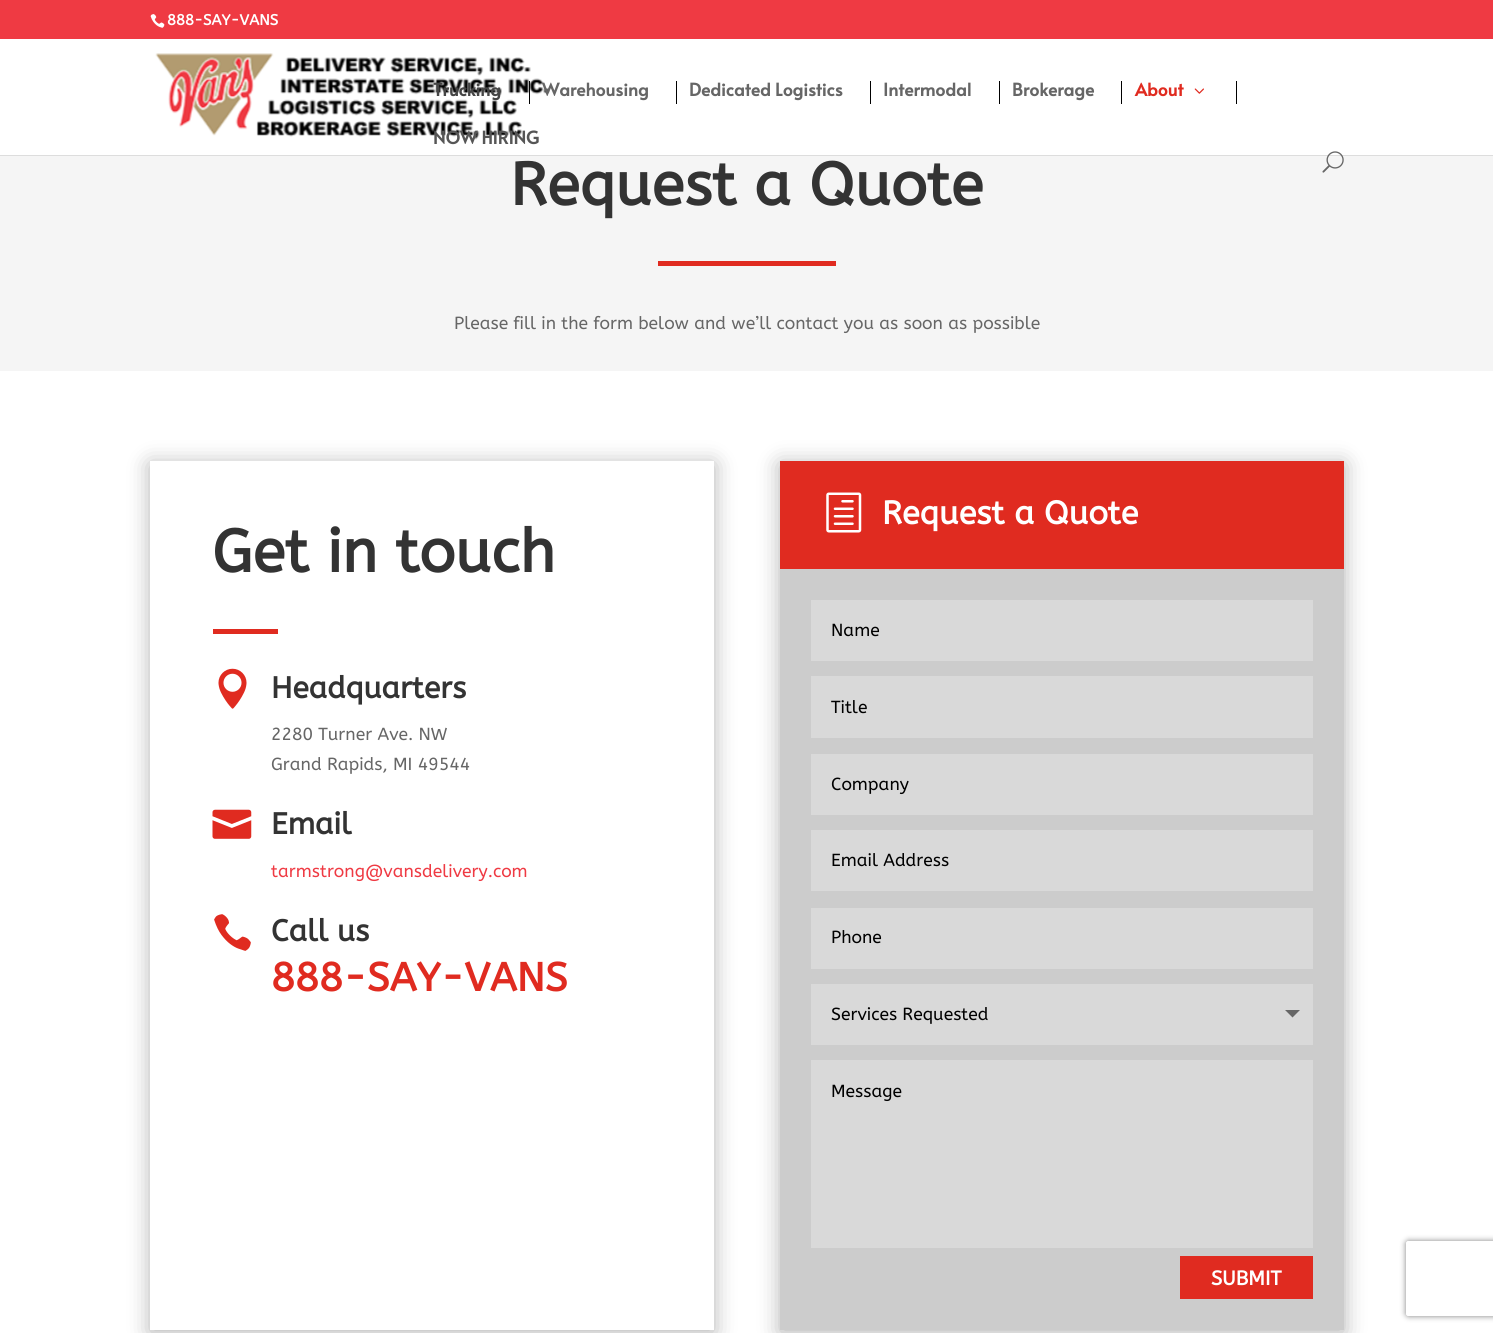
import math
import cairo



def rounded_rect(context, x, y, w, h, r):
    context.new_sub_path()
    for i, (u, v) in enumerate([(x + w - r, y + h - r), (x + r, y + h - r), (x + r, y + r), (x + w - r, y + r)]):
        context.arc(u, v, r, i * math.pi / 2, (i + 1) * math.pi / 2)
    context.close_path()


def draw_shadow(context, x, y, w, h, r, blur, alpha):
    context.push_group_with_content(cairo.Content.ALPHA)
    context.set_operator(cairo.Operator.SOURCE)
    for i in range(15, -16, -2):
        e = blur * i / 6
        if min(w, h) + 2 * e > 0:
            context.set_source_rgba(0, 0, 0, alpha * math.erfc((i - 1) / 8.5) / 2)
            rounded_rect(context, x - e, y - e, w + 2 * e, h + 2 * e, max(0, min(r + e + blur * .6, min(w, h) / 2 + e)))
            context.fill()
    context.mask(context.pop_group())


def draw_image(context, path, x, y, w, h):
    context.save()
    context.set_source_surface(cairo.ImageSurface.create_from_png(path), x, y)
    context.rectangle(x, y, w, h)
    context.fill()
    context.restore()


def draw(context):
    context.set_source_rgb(245 / 255, 245 / 255, 245 / 255)
    context.paint()
    context.set_source_rgb(239 / 255, 58 / 255, 67 / 255)
    context.rectangle(0, 0, 1493, 39)
    context.fill()
    draw_image(context, "images/1.png", 150, 14, 15, 14)
    context.set_source_rgb(221 / 255, 221 / 255, 221 / 255)
    context.new_path()
    context.move_to(0, 155)
    context.line_to(0, 156)
    context.line_to(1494, 156)
    context.line_to(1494, 40)
    context.line_to(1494, 155)
    context.close_path()
    context.fill()
    context.set_source_rgb(1, 1, 1)
    context.rectangle(0, 39, 1493, 116)
    context.fill()
    draw_image(context, "images/2.png", 155, 53, 395, 87)
    context.set_source_rgb(0, 0, 0)
    context.rectangle(529, 81, 1, 23)
    context.fill()
    context.rectangle(676, 81, 1, 23)
    context.fill()
    context.rectangle(870, 81, 1, 23)
    context.fill()
    context.rectangle(999, 81, 1, 23)
    context.fill()
    context.rectangle(1121, 81, 1, 23)
    context.fill()
    context.rectangle(1236, 81, 1, 23)
    context.fill()
    draw_image(context, "images/3.png", 1194, 88, 10, 6)
    draw_image(context, "images/4.png", 1322, 151, 22, 22)
    context.set_source_rgb(224 / 255, 43 / 255, 32 / 255)
    context.rectangle(658, 261, 178, 5)
    context.fill()
    context.set_source_rgb(1, 1, 1)
    context.rectangle(0, 371, 1493, 962)
    context.fill()
    context.set_source_rgb(0, 0, 0)
    draw_shadow(context, 150, 464, 564, 869, 0, 11, 0.3)
    context.set_source_rgb(1, 1, 1)
    context.rectangle(150, 461, 564, 869)
    context.fill()
    context.set_source_rgb(224 / 255, 43 / 255, 32 / 255)
    context.rectangle(213, 629, 65, 5)
    context.fill()
    draw_image(context, "images/5.png", 218, 668, 29, 41)
    draw_image(context, "images/6.png", 212, 809, 40, 30)
    draw_image(context, "images/7.png", 214, 914, 37, 37)
    context.save()
    context.set_fill_rule(cairo.FillRule.EVEN_ODD)
    context.new_path()
    context.move_to(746, 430)
    context.line_to(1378, 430)
    context.line_to(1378, 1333)
    context.line_to(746, 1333)
    context.close_path()
    context.move_to(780, 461)
    context.line_to(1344, 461)
    context.line_to(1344, 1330)
    context.line_to(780, 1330)
    context.close_path()
    context.clip()
    context.set_source_rgb(0, 0, 0)
    draw_shadow(context, 780, 464, 564, 869, 0, 11, 0.3)
    context.restore()
    context.rectangle(780, 461, 564, 108)
    context.fill()
    draw_image(context, "images/8.png", 826, 492, 36, 41)
    context.set_source_rgba(0, 0, 0, 0.2)
    context.rectangle(780, 569, 564, 761)
    context.fill()
    context.set_source_rgb(217 / 255, 217 / 255, 217 / 255)
    context.rectangle(811, 600, 502, 61)
    context.fill()
    context.rectangle(811, 676, 502, 62)
    context.fill()
    context.rectangle(811, 754, 502, 61)
    context.fill()
    context.rectangle(811, 830, 502, 61)
    context.fill()
    context.rectangle(811, 908, 502, 61)
    context.fill()
    context.rectangle(811, 984, 502, 61)
    context.fill()
    context.set_source_rgb(102 / 255, 102 / 255, 102 / 255)
    context.new_path()
    context.move_to(1285, 1010)
    context.line_to(1300, 1010)
    context.line_to(1292.5, 1017.5)
    context.close_path()
    context.fill()
    context.set_source_rgb(217 / 255, 217 / 255, 217 / 255)
    context.rectangle(811, 1060, 502, 188)
    context.fill()
    context.set_source_rgb(224 / 255, 43 / 255, 32 / 255)
    context.rectangle(1180, 1256, 133, 43)
    context.fill()
    context.save()
    context.set_fill_rule(cairo.FillRule.EVEN_ODD)
    context.new_path()
    context.move_to(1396, 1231)
    context.line_to(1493, 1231)
    context.line_to(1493, 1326)
    context.line_to(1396, 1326)
    context.close_path()
    context.move_to(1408.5, 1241)
    context.line_to(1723.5, 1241)
    context.curve_to(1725, 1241, 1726, 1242, 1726, 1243.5)
    context.line_to(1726, 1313.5)
    context.curve_to(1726, 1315, 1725, 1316, 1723.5, 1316)
    context.line_to(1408.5, 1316)
    context.curve_to(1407, 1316, 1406, 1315, 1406, 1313.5)
    context.line_to(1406, 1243.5)
    context.curve_to(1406, 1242, 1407, 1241, 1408.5, 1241)
    context.close_path()
    context.clip()
    context.set_source_rgb(128 / 255, 128 / 255, 128 / 255)
    draw_shadow(context, 1406, 1241, 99, 75, 2.5, 3, 1)
    context.restore()
    context.select_font_face("ABeeZee", cairo.FontSlant.NORMAL, cairo.FontWeight.BOLD)
    context.set_font_size(15)
    context.set_source_rgb(1, 1, 1)
    context.move_to(167, 25)
    context.show_text("888-SAY-VANS")
    context.select_font_face("Alata", cairo.FontSlant.NORMAL, cairo.FontWeight.BOLD)
    context.set_font_size(17.5)
    context.set_source_rgb(69 / 255, 69 / 255, 69 / 255)
    context.move_to(433, 96)
    context.show_text("Trucking")
    context.set_source_rgb(102 / 255, 102 / 255, 102 / 255)
    context.move_to(542, 96)
    context.show_text("Warehousing")
    context.move_to(689, 96)
    context.show_text("Dedicated Logistics")
    context.move_to(883, 96)
    context.show_text("Intermodal")
    context.move_to(1012, 96)
    context.show_text("Brokerage")
    context.set_source_rgb(224 / 255, 43 / 255, 32 / 255)
    context.move_to(1135, 96)
    context.show_text("About")
    context.set_source_rgb(86 / 255, 86 / 255, 86 / 255)
    context.move_to(433, 144)
    context.show_text("NOW HIRING")
    context.select_font_face("ABeeZee", cairo.FontSlant.NORMAL, cairo.FontWeight.BOLD)
    context.set_font_size(60)
    context.set_source_rgb(51 / 255, 51 / 255, 51 / 255)
    context.move_to(510, 205)
    context.show_text("Request a Quote")
    context.select_font_face("ABeeZee")
    context.set_font_size(17.5)
    context.set_source_rgb(102 / 255, 102 / 255, 102 / 255)
    context.move_to(454, 329)
    context.show_text("Please fill in the form below and we’ll contact you as soon as possible")
    context.select_font_face("ABeeZee", cairo.FontSlant.NORMAL, cairo.FontWeight.BOLD)
    context.set_font_size(60)
    context.set_source_rgb(51 / 255, 51 / 255, 51 / 255)
    context.move_to(212, 572)
    context.show_text("Get in touch")
    context.set_font_size(30)
    context.move_to(271, 698)
    context.show_text("Headquarters")
    context.select_font_face("ABeeZee")
    context.set_font_size(17.5)
    context.set_source_rgb(102 / 255, 102 / 255, 102 / 255)
    context.move_to(271, 740)
    context.show_text("2280 Turner Ave. NW")
    context.move_to(271, 770)
    context.show_text("Grand Rapids, MI 49544")
    context.select_font_face("ABeeZee", cairo.FontSlant.NORMAL, cairo.FontWeight.BOLD)
    context.set_font_size(30)
    context.set_source_rgb(51 / 255, 51 / 255, 51 / 255)
    context.move_to(271, 834)
    context.show_text("Email")
    context.select_font_face("ABeeZee")
    context.set_font_size(17.5)
    context.set_source_rgb(239 / 255, 58 / 255, 67 / 255)
    context.move_to(271, 877)
    context.show_text("tarmstrong@vansdelivery.com")
    context.select_font_face("ABeeZee", cairo.FontSlant.NORMAL, cairo.FontWeight.BOLD)
    context.set_font_size(30)
    context.set_source_rgb(51 / 255, 51 / 255, 51 / 255)
    context.move_to(271, 941)
    context.show_text("Call us")
    context.set_font_size(40)
    context.set_source_rgb(224 / 255, 43 / 255, 32 / 255)
    context.move_to(271, 991)
    context.show_text("888-SAY-VANS")
    context.set_font_size(32.5)
    context.set_source_rgb(1, 1, 1)
    context.move_to(882, 524)
    context.show_text("Request a Quote")
    context.select_font_face("ABeeZee")
    context.set_font_size(17.5)
    context.set_source_rgb(0, 0, 0)
    context.move_to(831, 636)
    context.show_text("Name")
    context.move_to(831, 713)
    context.show_text("Title")
    context.move_to(831, 790)
    context.show_text("Company")
    context.move_to(831, 866)
    context.show_text("Email Address")
    context.move_to(831, 943)
    context.show_text("Phone")
    context.move_to(831, 1020)
    context.show_text("Services Requested")
    context.move_to(831, 1097)
    context.show_text("Message")
    context.select_font_face("ABeeZee", cairo.FontSlant.NORMAL, cairo.FontWeight.BOLD)
    context.set_font_size(20)
    context.set_source_rgb(1, 1, 1)
    context.move_to(1211, 1285)
    context.show_text("SUBMIT")


surface = cairo.ImageSurface(cairo.Format.RGB24, 1493, 1333)
context = cairo.Context(surface)
options = cairo.FontOptions()
options.set_hint_metrics(cairo.HintMetrics.OFF)
options.set_hint_style(cairo.HintStyle.NONE)
context.set_font_options(options)
context.set_miter_limit(4)
draw(context)
surface.write_to_png("out.png")
